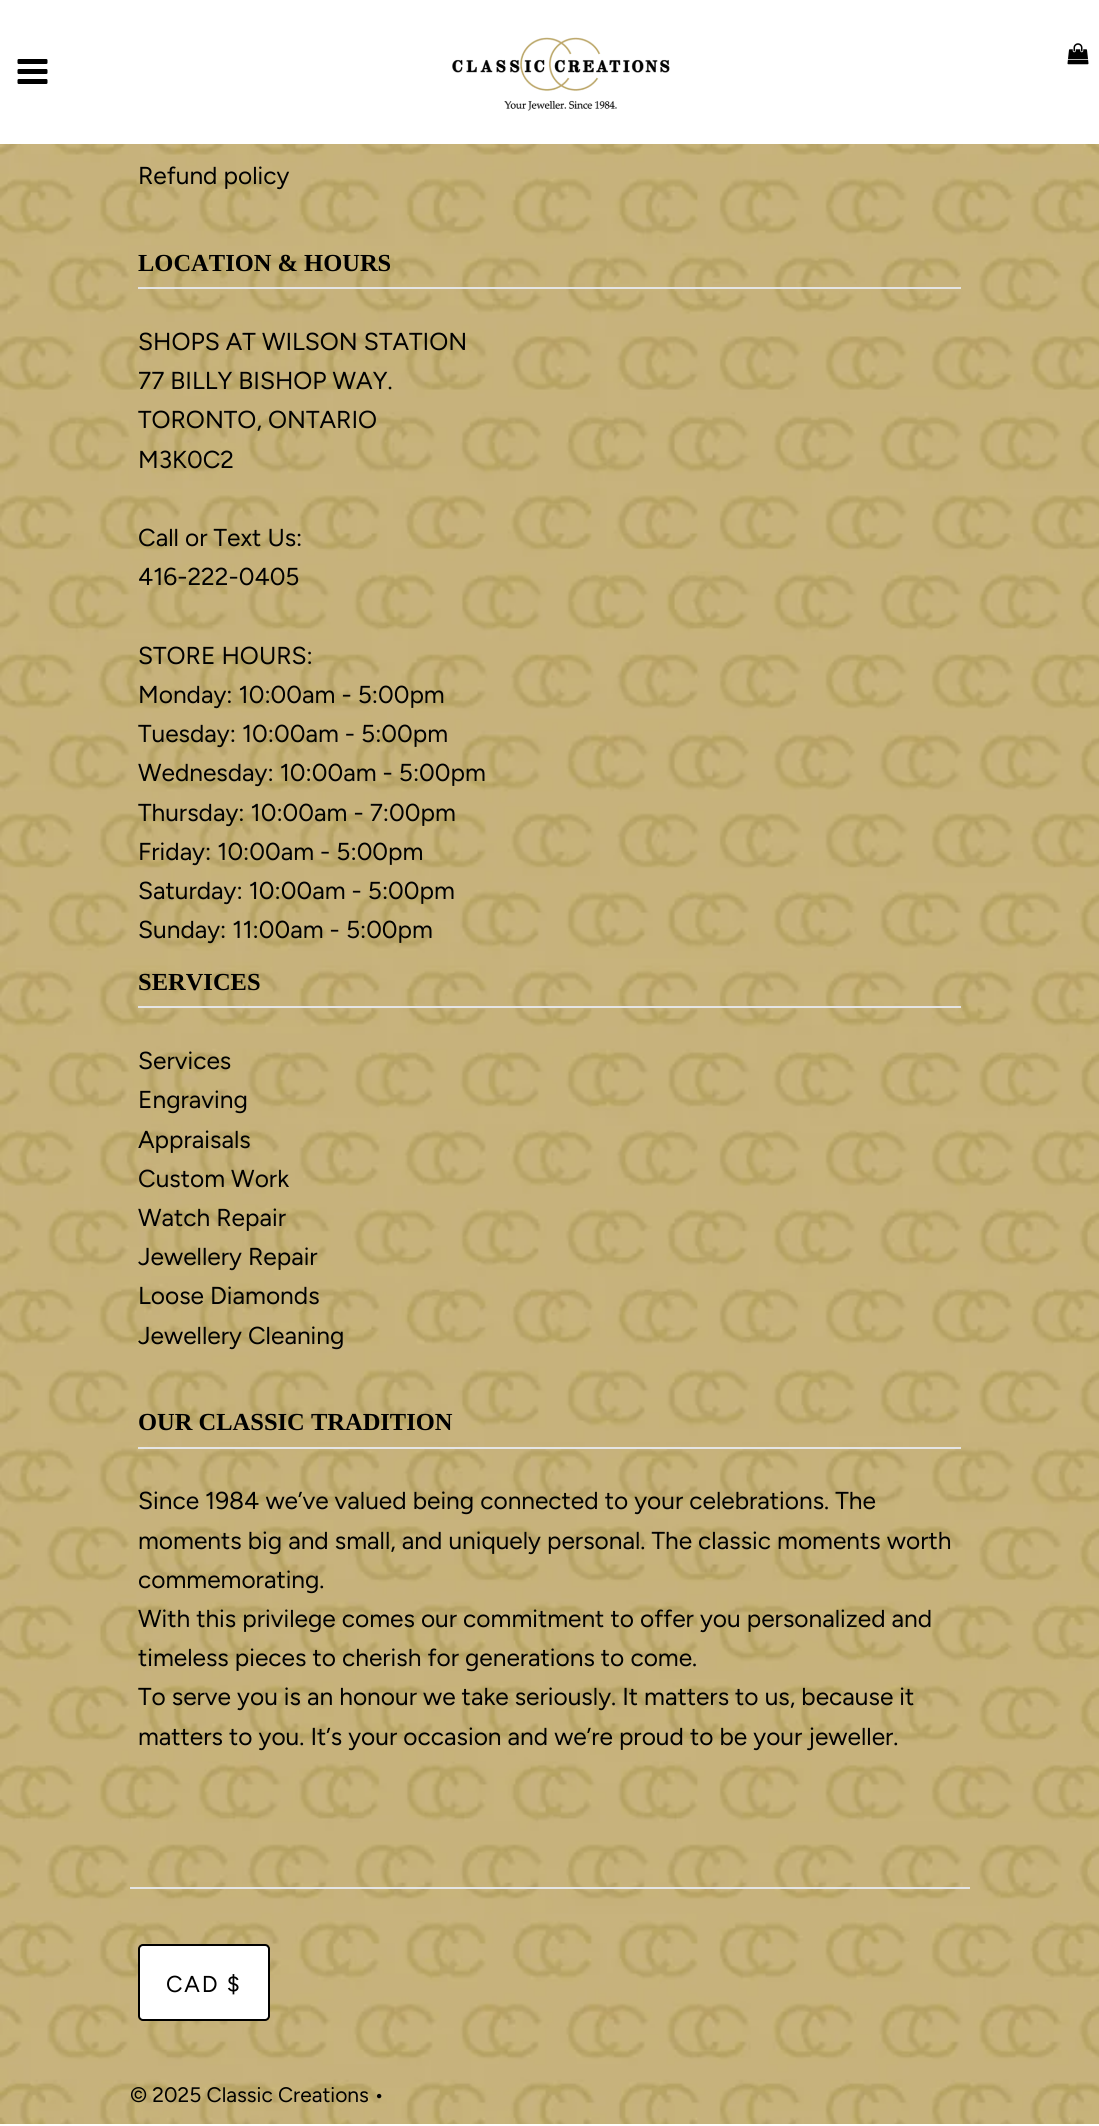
import math
import cairo



def draw_spaced(context, x, y, s, letter, word):
    context.move_to(x, y)
    for ch in s:
        context.show_text(ch)
        context.rel_move_to(letter + word * (ch == ' '), 0)


def rounded_rect(context, x, y, w, h, r):
    context.new_sub_path()
    for i, (u, v) in enumerate([(x + w - r, y + h - r), (x + r, y + h - r), (x + r, y + r), (x + w - r, y + r)]):
        context.arc(u, v, r, i * math.pi / 2, (i + 1) * math.pi / 2)
    context.close_path()


def draw_image(context, path, x, y, w, h):
    context.save()
    context.set_source_surface(cairo.ImageSurface.create_from_png(path), x, y)
    context.rectangle(x, y, w, h)
    context.fill()
    context.restore()


def draw(context):
    context.set_source_rgb(1, 1, 1)
    context.paint()
    draw_image(context, "images/1.png", 452, 37, 218, 74)
    draw_image(context, "images/2.png", 1067, 43, 22, 22)
    draw_image(context, "images/3.png", 17, 59, 31, 25)
    draw_image(context, "images/4.png", 0, 144, 1099, 1980)
    context.set_source_rgb(229 / 255, 229 / 255, 229 / 255)
    context.rectangle(138, 287, 823, 2)
    context.fill()
    context.rectangle(138, 1006, 823, 2)
    context.fill()
    context.rectangle(138, 1447, 823, 2)
    context.fill()
    context.rectangle(130, 1887, 840, 2)
    context.fill()
    context.set_source_rgb(1, 1, 1)
    rounded_rect(context, 139, 1945, 130, 75, 4)
    context.fill_preserve()
    context.set_source_rgb(0, 0, 0)
    context.stroke()
    context.select_font_face("Figtree")
    context.set_font_size(24.5)
    context.move_to(138, 184)
    context.show_text("Refund policy")
    context.select_font_face("Liberation Serif", cairo.FontSlant.NORMAL, cairo.FontWeight.BOLD)
    context.move_to(138, 271)
    context.show_text("LOCATION & HOURS")
    context.select_font_face("Figtree")
    context.move_to(138, 350)
    context.show_text("SHOPS AT WILSON STATION")
    context.move_to(138, 389)
    context.show_text("77 BILLY BISHOP WAY.")
    context.move_to(138, 428)
    context.show_text("TORONTO, ONTARIO")
    context.move_to(138, 468)
    context.show_text("M3K0C2")
    context.move_to(138, 546)
    context.show_text("Call or Text Us:")
    context.move_to(138, 585)
    context.show_text("416-222-0405")
    context.move_to(138, 664)
    context.show_text("STORE HOURS:")
    context.move_to(138, 703)
    context.show_text("Monday: 10:00am - 5:00pm")
    context.move_to(138, 742)
    context.show_text("Tuesday: 10:00am - 5:00pm")
    context.move_to(138, 781)
    context.show_text("Wednesday: 10:00am - 5:00pm")
    context.move_to(138, 821)
    context.show_text("Thursday: 10:00am - 7:00pm")
    context.move_to(138, 860)
    context.show_text("Friday: 10:00am - 5:00pm")
    context.move_to(138, 899)
    context.show_text("Saturday: 10:00am - 5:00pm")
    context.move_to(138, 938)
    context.show_text("Sunday: 11:00am - 5:00pm")
    context.select_font_face("Liberation Serif", cairo.FontSlant.NORMAL, cairo.FontWeight.BOLD)
    context.move_to(138, 990)
    context.show_text("SERVICES")
    context.select_font_face("Figtree")
    context.move_to(138, 1069)
    context.show_text("Services")
    context.move_to(138, 1108)
    context.show_text("Engraving")
    context.move_to(138, 1148)
    context.show_text("Appraisals")
    context.move_to(138, 1187)
    context.show_text("Custom Work")
    context.move_to(138, 1226)
    context.show_text("Watch Repair")
    context.move_to(138, 1265)
    context.show_text("Jewellery Repair")
    context.move_to(138, 1304)
    context.show_text("Loose Diamonds")
    context.move_to(138, 1344)
    context.show_text("Jewellery Cleaning")
    context.select_font_face("Liberation Serif", cairo.FontSlant.NORMAL, cairo.FontWeight.BOLD)
    context.move_to(138, 1430)
    context.show_text("OUR CLASSIC TRADITION")
    context.select_font_face("Figtree")
    context.move_to(138, 1509)
    context.show_text("Since 1984 we’ve valued being connected to your celebrations. The")
    context.move_to(138, 1549)
    context.show_text("moments big and small, and uniquely personal. The classic moments worth")
    context.move_to(138, 1588)
    context.show_text("commemorating.")
    context.move_to(138, 1627)
    context.show_text("With this privilege comes our commitment to offer you personalized and")
    context.move_to(138, 1666)
    context.show_text("timeless pieces to cherish for generations to come.")
    context.move_to(138, 1705)
    context.show_text("To serve you is an honour we take seriously. It matters to us, because it")
    context.move_to(138, 1745)
    context.show_text("matters to you. It’s your occasion and we’re proud to be your jeweller.")
    context.set_font_size(23)
    draw_spaced(context, 166, 1992, "CAD $", 1.75, 0)
    context.set_font_size(21)
    context.move_to(130, 2102)
    context.show_text("© 2025 Classic Creations •")


surface = cairo.ImageSurface(cairo.Format.RGB24, 1099, 2126)
context = cairo.Context(surface)
options = cairo.FontOptions()
options.set_hint_metrics(cairo.HintMetrics.OFF)
options.set_hint_style(cairo.HintStyle.NONE)
context.set_font_options(options)
context.set_miter_limit(4)
draw(context)
surface.write_to_png("out.png")
